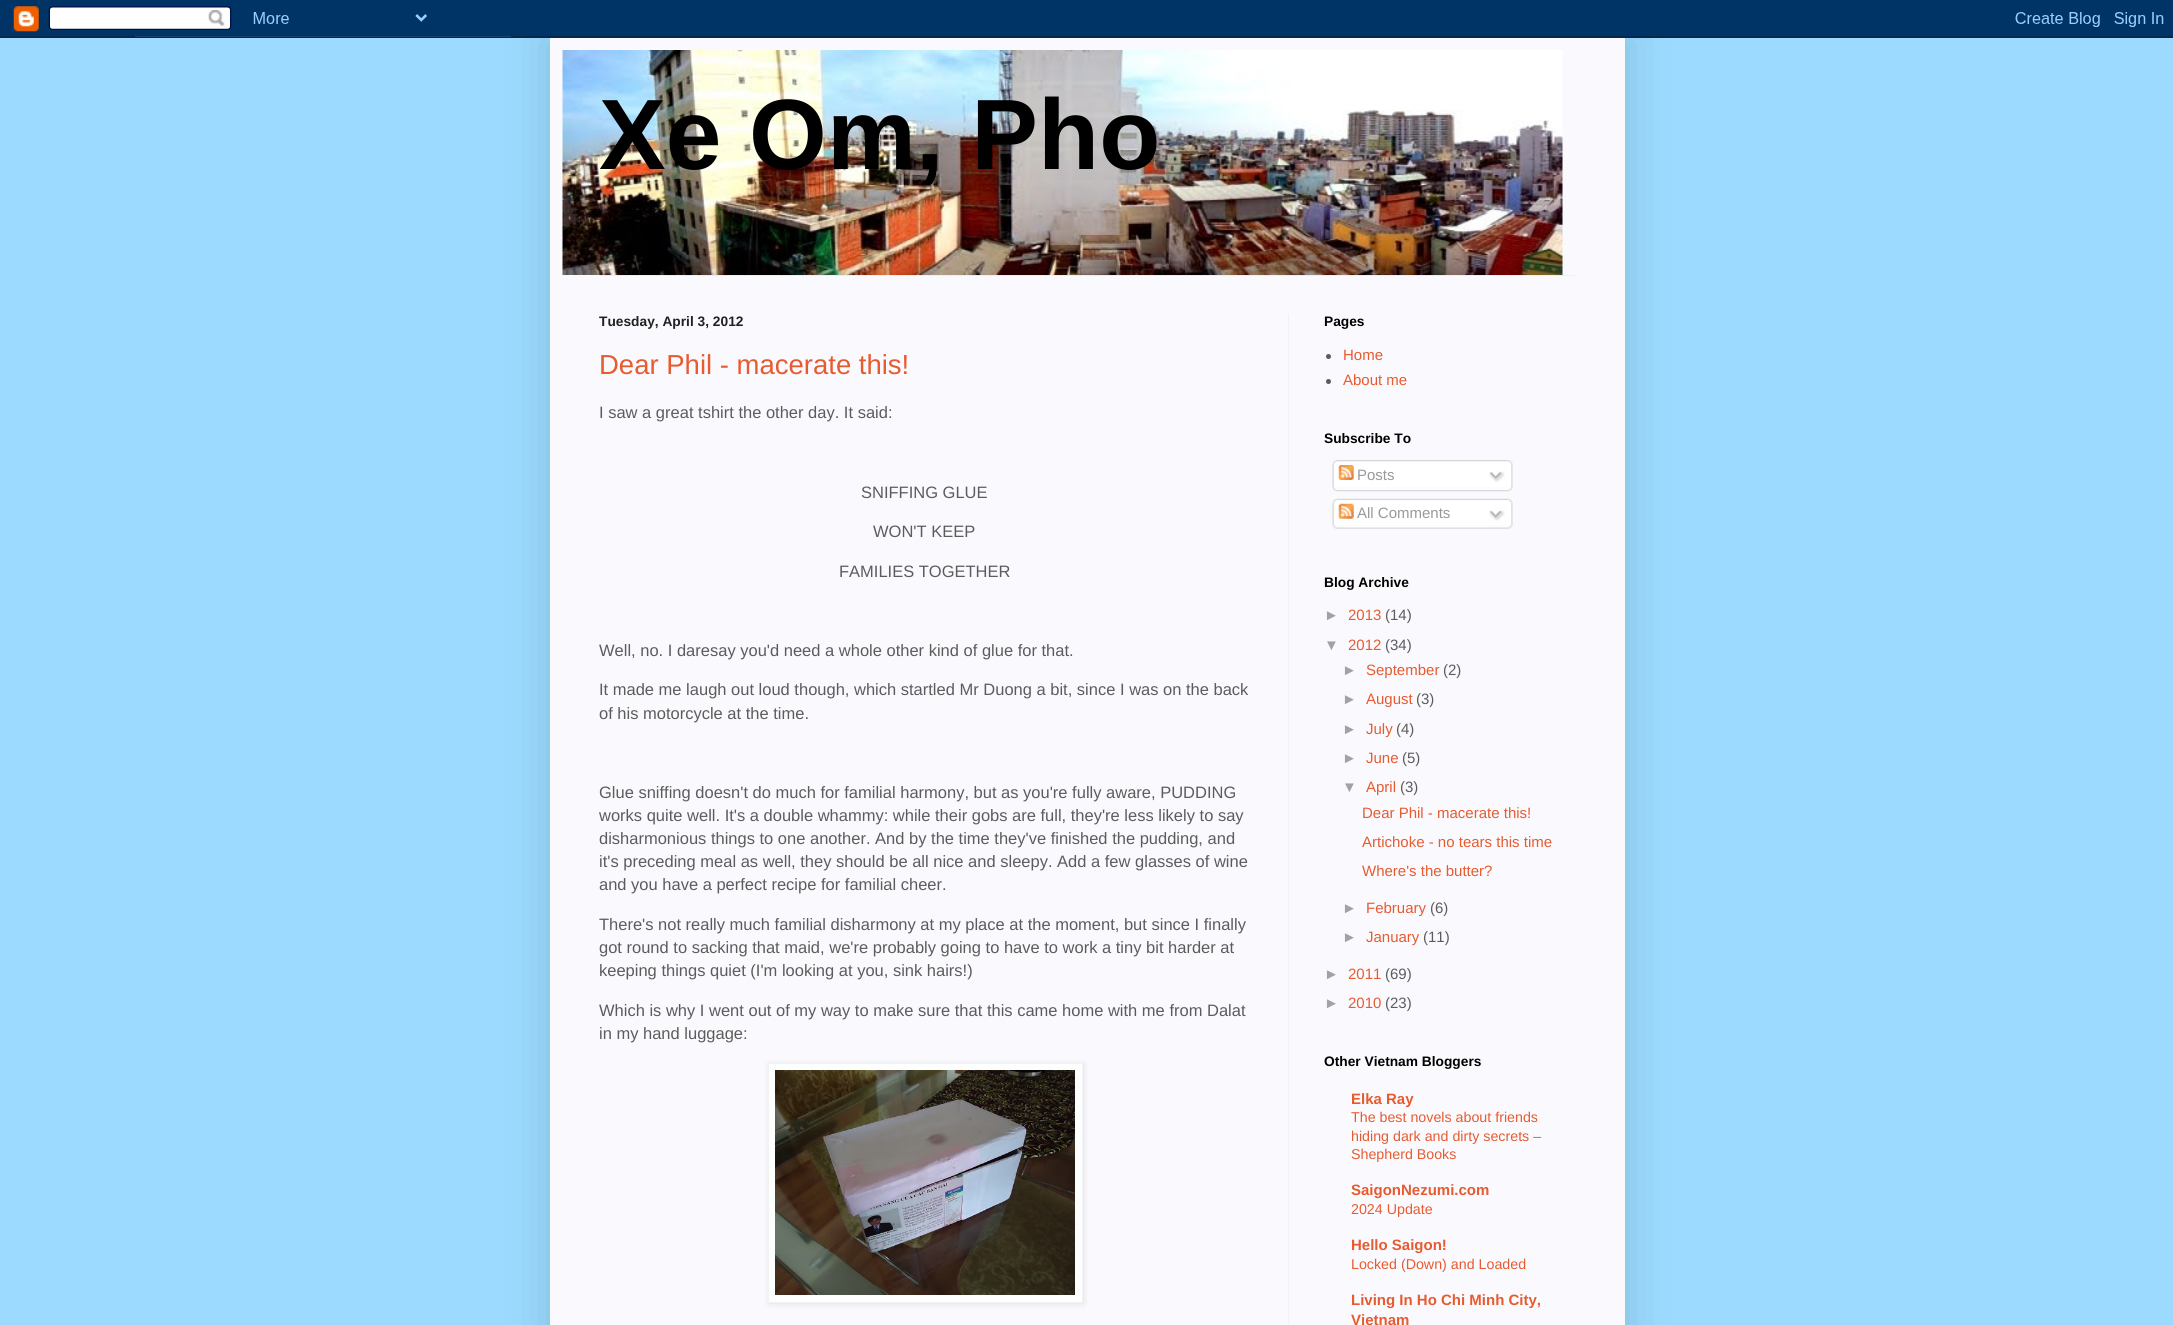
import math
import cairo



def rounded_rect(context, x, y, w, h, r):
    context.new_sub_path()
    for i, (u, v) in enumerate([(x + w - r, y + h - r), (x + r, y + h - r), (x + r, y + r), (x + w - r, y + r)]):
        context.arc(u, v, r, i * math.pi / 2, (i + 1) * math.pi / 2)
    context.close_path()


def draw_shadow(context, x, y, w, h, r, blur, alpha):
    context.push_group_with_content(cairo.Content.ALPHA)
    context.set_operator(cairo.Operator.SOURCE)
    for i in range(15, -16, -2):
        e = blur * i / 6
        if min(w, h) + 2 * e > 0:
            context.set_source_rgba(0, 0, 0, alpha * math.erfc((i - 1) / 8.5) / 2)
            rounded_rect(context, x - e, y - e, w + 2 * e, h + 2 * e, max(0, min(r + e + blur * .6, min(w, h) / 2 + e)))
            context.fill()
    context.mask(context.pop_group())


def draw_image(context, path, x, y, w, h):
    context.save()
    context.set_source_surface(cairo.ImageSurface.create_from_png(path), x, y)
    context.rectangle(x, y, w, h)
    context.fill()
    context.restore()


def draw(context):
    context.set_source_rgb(156 / 255, 219 / 255, 1)
    context.paint()
    context.set_source_rgb(0, 0, 0)
    draw_shadow(context, 550, 38, 1075, 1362, 0, 25, 0.15)
    draw_image(context, "images/1.png", 0, 0, 2173, 38)
    context.set_source_rgb(250 / 255, 250 / 255, 254 / 255)
    context.rectangle(550, 38, 1075, 1287)
    context.fill()
    draw_image(context, "images/2.png", 562, 50, 1001, 225)
    context.set_source_rgb(238 / 255, 238 / 255, 238 / 255)
    context.rectangle(600, 275, 975, 1)
    context.fill()
    context.set_source_rgb(242 / 255, 242 / 255, 242 / 255)
    context.rectangle(1288, 314, 1, 1011)
    context.fill()
    context.set_source_rgb(0, 0, 0)
    draw_shadow(context, 769, 1064, 315, 240, 0, 3, 0.1)
    context.set_source_rgb(252 / 255, 1, 253 / 255)
    context.rectangle(768.5, 1063.5, 314, 239)
    context.fill_preserve()
    context.set_source_rgb(242 / 255, 242 / 255, 242 / 255)
    context.set_line_width(1)
    context.stroke()
    draw_image(context, "images/3.png", 775, 1070, 300, 225)
    context.set_source_rgb(92 / 255, 92 / 255, 92 / 255)
    context.arc(1328.5, 356.5, 2.5, 0, 2 * math.pi)
    context.fill()
    context.arc(1328.5, 381.5, 2.5, 0, 2 * math.pi)
    context.fill()
    draw_image(context, "images/4.png", 1332, 460, 181, 28)
    draw_image(context, "images/5.png", 1338, 465, 16, 15)
    draw_image(context, "images/6.png", 1489, 471, 16, 12)
    draw_image(context, "images/7.png", 1332, 487, 181, 5)
    draw_image(context, "images/8.png", 1332, 498, 181, 27)
    draw_image(context, "images/9.png", 1338, 503, 16, 16)
    draw_image(context, "images/10.png", 1489, 510, 16, 11)
    draw_image(context, "images/11.png", 1332, 525, 181, 4)
    context.select_font_face("Liberation Sans", cairo.FontSlant.NORMAL, cairo.FontWeight.BOLD)
    context.set_font_size(100)
    context.set_source_rgb(0, 0, 0)
    context.move_to(599, 169)
    context.show_text("Xe Om, Pho")
    context.set_font_size(13.75)
    context.set_source_rgb(34 / 255, 34 / 255, 34 / 255)
    context.move_to(599, 326)
    context.show_text("Tuesday, April 3, 2012")
    context.select_font_face("Liberation Sans")
    context.set_font_size(27.5)
    context.set_source_rgb(230 / 255, 91 / 255, 48 / 255)
    context.move_to(599, 374)
    context.show_text("Dear Phil - macerate this!")
    context.set_font_size(16.5)
    context.set_source_rgb(92 / 255, 92 / 255, 92 / 255)
    context.move_to(599, 418)
    context.show_text("I saw a great tshirt the other day. It said:")
    context.move_to(861, 498)
    context.show_text("SNIFFING GLUE")
    context.move_to(873, 537)
    context.show_text("WON'T KEEP")
    context.move_to(839, 577)
    context.show_text("FAMILIES TOGETHER")
    context.move_to(599, 656)
    context.show_text("Well, no. I daresay you'd need a whole other kind of glue for that.")
    context.move_to(599, 695)
    context.show_text("It made me laugh out loud though, which startled Mr Duong a bit, since I was on the back")
    context.move_to(599, 719)
    context.show_text("of his motorcycle at the time.")
    context.move_to(599, 798)
    context.show_text("Glue sniffing doesn't do much for familial harmony, but as you're fully aware, PUDDING")
    context.move_to(599, 821)
    context.show_text("works quite well. It's a double whammy: while their gobs are full, they're less likely to say")
    context.move_to(599, 844)
    context.show_text("disharmonious things to one another. And by the time they've finished the pudding, and")
    context.move_to(599, 867)
    context.show_text("it's preceding meal as well, they should be all nice and sleepy. Add a few glasses of wine")
    context.move_to(599, 890)
    context.show_text("and you have a perfect recipe for familial cheer.")
    context.move_to(599, 930)
    context.show_text("There's not really much familial disharmony at my place at the moment, but since I finally")
    context.move_to(599, 953)
    context.show_text("got round to sacking that maid, we're probably going to have to work a tiny bit harder at")
    context.move_to(599, 976)
    context.show_text("keeping things quiet (I'm looking at you, sink hairs!)")
    context.move_to(599, 1016)
    context.show_text("Which is why I went out of my way to make sure that this came home with me from Dalat")
    context.move_to(599, 1039)
    context.show_text("in my hand luggage:")
    context.select_font_face("Liberation Sans", cairo.FontSlant.NORMAL, cairo.FontWeight.BOLD)
    context.set_font_size(13.75)
    context.set_source_rgb(0, 0, 0)
    context.move_to(1324, 326)
    context.show_text("Pages")
    context.select_font_face("Liberation Sans")
    context.set_font_size(15)
    context.set_source_rgb(230 / 255, 91 / 255, 48 / 255)
    context.move_to(1343, 360)
    context.show_text("Home")
    context.move_to(1343, 385)
    context.show_text("About me")
    context.select_font_face("Liberation Sans", cairo.FontSlant.NORMAL, cairo.FontWeight.BOLD)
    context.set_font_size(13.75)
    context.set_source_rgb(0, 0, 0)
    context.move_to(1324, 443)
    context.show_text("Subscribe To")
    context.select_font_face("Liberation Sans")
    context.set_font_size(15)
    context.set_source_rgb(153 / 255, 153 / 255, 153 / 255)
    context.move_to(1357, 480)
    context.show_text("Posts")
    context.move_to(1357, 518)
    context.show_text("All Comments")
    context.select_font_face("Liberation Sans", cairo.FontSlant.NORMAL, cairo.FontWeight.BOLD)
    context.set_font_size(13.75)
    context.set_source_rgb(0, 0, 0)
    context.move_to(1324, 587)
    context.show_text("Blog Archive")
    context.select_font_face("Liberation Sans")
    context.set_font_size(15)
    context.set_source_rgb(162 / 255, 162 / 255, 162 / 255)
    context.move_to(1324, 620)
    context.show_text("►")
    context.set_source_rgb(230 / 255, 91 / 255, 48 / 255)
    context.move_to(1348, 620)
    context.show_text("2013")
    context.set_source_rgb(92 / 255, 92 / 255, 92 / 255)
    context.move_to(1385, 620)
    context.show_text("(14)")
    context.set_source_rgb(162 / 255, 162 / 255, 162 / 255)
    context.move_to(1324, 650)
    context.show_text("▼")
    context.set_source_rgb(230 / 255, 91 / 255, 48 / 255)
    context.move_to(1348, 650)
    context.show_text("2012")
    context.set_source_rgb(92 / 255, 92 / 255, 92 / 255)
    context.move_to(1385, 650)
    context.show_text("(34)")
    context.set_source_rgb(162 / 255, 162 / 255, 162 / 255)
    context.move_to(1342, 675)
    context.show_text("►")
    context.set_source_rgb(230 / 255, 91 / 255, 48 / 255)
    context.move_to(1366, 675)
    context.show_text("September")
    context.set_source_rgb(92 / 255, 92 / 255, 92 / 255)
    context.move_to(1443, 675)
    context.show_text("(2)")
    context.set_source_rgb(162 / 255, 162 / 255, 162 / 255)
    context.move_to(1342, 704)
    context.show_text("►")
    context.set_source_rgb(230 / 255, 91 / 255, 48 / 255)
    context.move_to(1366, 704)
    context.show_text("August")
    context.set_source_rgb(92 / 255, 92 / 255, 92 / 255)
    context.move_to(1416, 704)
    context.show_text("(3)")
    context.set_source_rgb(162 / 255, 162 / 255, 162 / 255)
    context.move_to(1342, 734)
    context.show_text("►")
    context.set_source_rgb(230 / 255, 91 / 255, 48 / 255)
    context.move_to(1366, 734)
    context.show_text("July")
    context.set_source_rgb(92 / 255, 92 / 255, 92 / 255)
    context.move_to(1396, 734)
    context.show_text("(4)")
    context.set_source_rgb(162 / 255, 162 / 255, 162 / 255)
    context.move_to(1342, 763)
    context.show_text("►")
    context.set_source_rgb(230 / 255, 91 / 255, 48 / 255)
    context.move_to(1366, 763)
    context.show_text("June")
    context.set_source_rgb(92 / 255, 92 / 255, 92 / 255)
    context.move_to(1402, 763)
    context.show_text("(5)")
    context.set_source_rgb(162 / 255, 162 / 255, 162 / 255)
    context.move_to(1342, 792)
    context.show_text("▼")
    context.set_source_rgb(230 / 255, 91 / 255, 48 / 255)
    context.move_to(1366, 792)
    context.show_text("April")
    context.set_source_rgb(92 / 255, 92 / 255, 92 / 255)
    context.move_to(1400, 792)
    context.show_text("(3)")
    context.set_source_rgb(230 / 255, 91 / 255, 48 / 255)
    context.move_to(1362, 818)
    context.show_text("Dear Phil - macerate this!")
    context.move_to(1362, 847)
    context.show_text("Artichoke - no tears this time")
    context.move_to(1362, 876)
    context.show_text("Where's the butter?")
    context.set_source_rgb(162 / 255, 162 / 255, 162 / 255)
    context.move_to(1342, 913)
    context.show_text("►")
    context.set_source_rgb(230 / 255, 91 / 255, 48 / 255)
    context.move_to(1366, 913)
    context.show_text("February")
    context.set_source_rgb(92 / 255, 92 / 255, 92 / 255)
    context.move_to(1430, 913)
    context.show_text("(6)")
    context.set_source_rgb(162 / 255, 162 / 255, 162 / 255)
    context.move_to(1342, 942)
    context.show_text("►")
    context.set_source_rgb(230 / 255, 91 / 255, 48 / 255)
    context.move_to(1366, 942)
    context.show_text("January")
    context.set_source_rgb(92 / 255, 92 / 255, 92 / 255)
    context.move_to(1423, 942)
    context.show_text("(11)")
    context.set_source_rgb(162 / 255, 162 / 255, 162 / 255)
    context.move_to(1324, 979)
    context.show_text("►")
    context.set_source_rgb(230 / 255, 91 / 255, 48 / 255)
    context.move_to(1348, 979)
    context.show_text("2011")
    context.set_source_rgb(92 / 255, 92 / 255, 92 / 255)
    context.move_to(1385, 979)
    context.show_text("(69)")
    context.set_source_rgb(162 / 255, 162 / 255, 162 / 255)
    context.move_to(1324, 1008)
    context.show_text("►")
    context.set_source_rgb(230 / 255, 91 / 255, 48 / 255)
    context.move_to(1348, 1008)
    context.show_text("2010")
    context.set_source_rgb(92 / 255, 92 / 255, 92 / 255)
    context.move_to(1385, 1008)
    context.show_text("(23)")
    context.select_font_face("Liberation Sans", cairo.FontSlant.NORMAL, cairo.FontWeight.BOLD)
    context.set_font_size(13.75)
    context.set_source_rgb(0, 0, 0)
    context.move_to(1324, 1066)
    context.show_text("Other Vietnam Bloggers")
    context.set_font_size(15)
    context.set_source_rgb(230 / 255, 91 / 255, 48 / 255)
    context.move_to(1351, 1104)
    context.show_text("Elka Ray")
    context.select_font_face("Liberation Sans")
    context.set_font_size(14.25)
    context.move_to(1351, 1122)
    context.show_text("The best novels about friends")
    context.move_to(1351, 1141)
    context.show_text("hiding dark and dirty secrets –")
    context.move_to(1351, 1159)
    context.show_text("Shepherd Books")
    context.select_font_face("Liberation Sans", cairo.FontSlant.NORMAL, cairo.FontWeight.BOLD)
    context.set_font_size(15)
    context.move_to(1351, 1195)
    context.show_text("SaigonNezumi.com")
    context.select_font_face("Liberation Sans")
    context.set_font_size(14.25)
    context.move_to(1351, 1214)
    context.show_text("2024 Update")
    context.select_font_face("Liberation Sans", cairo.FontSlant.NORMAL, cairo.FontWeight.BOLD)
    context.set_font_size(15)
    context.move_to(1351, 1250)
    context.show_text("Hello Saigon!")
    context.select_font_face("Liberation Sans")
    context.set_font_size(14.25)
    context.move_to(1351, 1269)
    context.show_text("Locked (Down) and Loaded")
    context.select_font_face("Liberation Sans", cairo.FontSlant.NORMAL, cairo.FontWeight.BOLD)
    context.set_font_size(15)
    context.move_to(1351, 1305)
    context.show_text("Living In Ho Chi Minh City,")
    context.move_to(1351, 1325)
    context.show_text("Vietnam")


surface = cairo.ImageSurface(cairo.Format.RGB24, 2173, 1325)
context = cairo.Context(surface)
options = cairo.FontOptions()
options.set_hint_metrics(cairo.HintMetrics.OFF)
options.set_hint_style(cairo.HintStyle.NONE)
context.set_font_options(options)
context.set_miter_limit(4)
draw(context)
surface.write_to_png("out.png")
